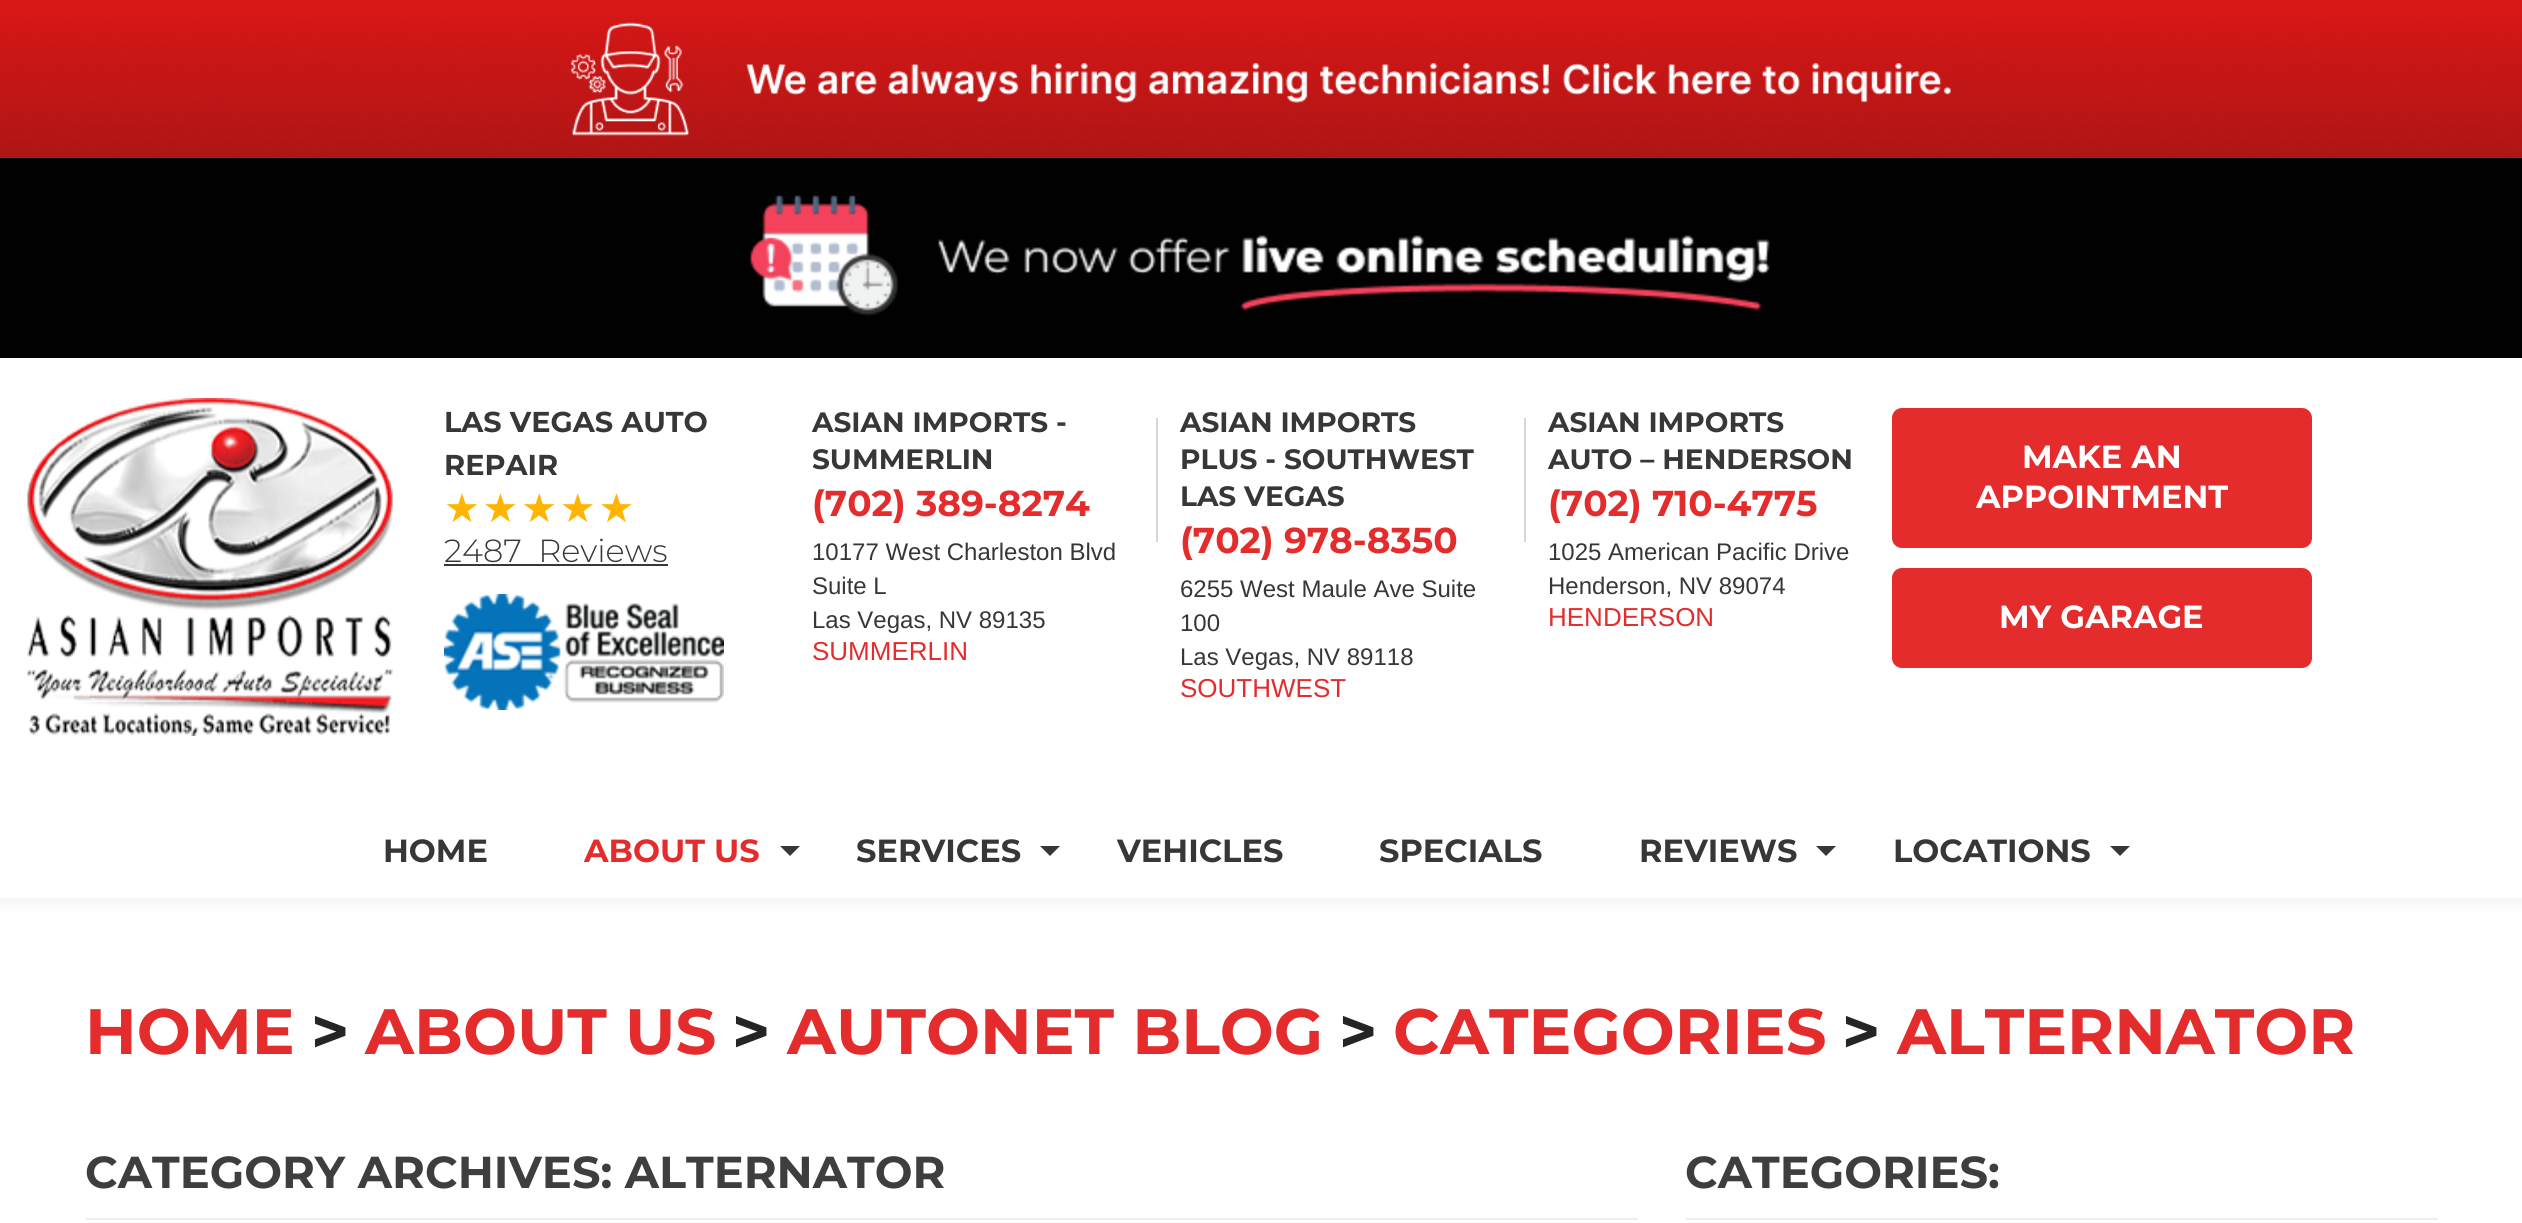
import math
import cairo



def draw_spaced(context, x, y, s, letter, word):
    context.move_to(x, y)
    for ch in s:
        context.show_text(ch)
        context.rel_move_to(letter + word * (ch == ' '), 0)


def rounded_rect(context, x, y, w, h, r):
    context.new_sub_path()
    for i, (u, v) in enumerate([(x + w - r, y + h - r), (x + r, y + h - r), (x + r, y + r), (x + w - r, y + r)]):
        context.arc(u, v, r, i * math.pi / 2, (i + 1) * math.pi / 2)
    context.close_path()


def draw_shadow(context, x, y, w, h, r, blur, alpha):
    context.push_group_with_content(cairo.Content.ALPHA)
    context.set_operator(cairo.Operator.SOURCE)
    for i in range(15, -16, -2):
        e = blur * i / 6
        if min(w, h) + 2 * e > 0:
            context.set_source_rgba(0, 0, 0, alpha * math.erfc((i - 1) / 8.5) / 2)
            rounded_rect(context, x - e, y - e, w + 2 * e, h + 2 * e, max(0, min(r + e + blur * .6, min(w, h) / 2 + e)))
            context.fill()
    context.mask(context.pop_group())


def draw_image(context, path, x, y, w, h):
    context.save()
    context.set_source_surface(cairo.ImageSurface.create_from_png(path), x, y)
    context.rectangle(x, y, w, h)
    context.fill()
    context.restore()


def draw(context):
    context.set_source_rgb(1, 1, 1)
    context.paint()
    context.set_source_rgb(217 / 255, 23 / 255, 23 / 255)
    context.rectangle(0, 0, 2522, 15)
    context.fill()
    draw_image(context, "images/1.png", 0, 15, 2522, 143)
    context.set_source_rgb(1 / 255, 1 / 255, 1 / 255)
    context.rectangle(0, 158, 2522, 200)
    context.fill()
    draw_image(context, "images/2.png", 750, 195, 1020, 121)
    context.save()
    context.set_fill_rule(cairo.FillRule.EVEN_ODD)
    context.new_path()
    context.move_to(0, 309)
    context.line_to(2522, 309)
    context.line_to(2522, 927)
    context.line_to(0, 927)
    context.close_path()
    context.move_to(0, 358)
    context.line_to(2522, 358)
    context.line_to(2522, 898)
    context.line_to(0, 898)
    context.close_path()
    context.clip()
    context.set_source_rgb(0, 0, 0)
    draw_shadow(context, -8, 340, 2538, 556, 0, 10, 0.1)
    context.restore()
    draw_image(context, "images/3.png", 27, 398, 366, 338)
    context.set_source_rgb(55 / 255, 55 / 255, 55 / 255)
    context.rectangle(444, 564, 224, 2)
    context.fill()
    draw_image(context, "images/4.png", 444, 594, 280, 116)
    context.set_source_rgb(213 / 255, 213 / 255, 213 / 255)
    context.rectangle(1156, 418, 2, 124)
    context.fill()
    context.rectangle(1524, 418, 2, 124)
    context.fill()
    context.set_source_rgb(228 / 255, 44 / 255, 44 / 255)
    rounded_rect(context, 1892, 408, 420, 140, 10)
    context.fill()
    rounded_rect(context, 1892, 568, 420, 100, 10)
    context.fill()
    context.set_source_rgb(55 / 255, 55 / 255, 55 / 255)
    context.new_path()
    context.move_to(780, 846)
    context.line_to(800, 846)
    context.line_to(790, 856)
    context.close_path()
    context.fill()
    context.new_path()
    context.move_to(1040, 846)
    context.line_to(1060, 846)
    context.line_to(1050, 856)
    context.close_path()
    context.fill()
    context.new_path()
    context.move_to(1816, 846)
    context.line_to(1836, 846)
    context.line_to(1826, 856)
    context.close_path()
    context.fill()
    context.new_path()
    context.move_to(2110, 846)
    context.line_to(2130, 846)
    context.line_to(2120, 856)
    context.close_path()
    context.fill()
    context.set_source_rgb(238 / 255, 238 / 255, 238 / 255)
    context.rectangle(86, 1218, 1552, 2)
    context.fill()
    context.rectangle(1686, 1218, 752, 2)
    context.fill()
    context.select_font_face("Montserrat", cairo.FontSlant.NORMAL, cairo.FontWeight.BOLD)
    context.set_font_size(28.75)
    context.set_source_rgb(55 / 255, 55 / 255, 55 / 255)
    context.move_to(444, 432)
    context.show_text("LAS VEGAS AUTO")
    context.move_to(444, 475)
    context.show_text("REPAIR")
    context.select_font_face("DejaVu Sans")
    context.set_font_size(40)
    context.set_source_rgb(1, 180 / 255, 0)
    draw_spaced(context, 444, 522, "★★★★★", 2.75, 0)
    context.select_font_face("Montserrat Light")
    context.set_font_size(32)
    context.set_source_rgb(55 / 255, 55 / 255, 55 / 255)
    context.move_to(444, 562)
    context.show_text("2487  Reviews")
    context.select_font_face("Montserrat", cairo.FontSlant.NORMAL, cairo.FontWeight.BOLD)
    context.set_font_size(28)
    context.move_to(812, 432)
    context.show_text("ASIAN IMPORTS -")
    context.move_to(812, 469)
    context.show_text("SUMMERLIN")
    context.set_font_size(36)
    context.set_source_rgb(228 / 255, 44 / 255, 44 / 255)
    context.move_to(812, 516)
    context.show_text("(702) 389-8274")
    context.select_font_face("Liberation Sans")
    context.set_font_size(24)
    context.set_source_rgb(55 / 255, 55 / 255, 55 / 255)
    context.move_to(812, 560)
    context.show_text("10177 West Charleston Blvd")
    context.move_to(812, 594)
    context.show_text("Suite L")
    context.move_to(812, 628)
    context.show_text("Las Vegas, NV 89135")
    context.set_font_size(26)
    context.set_source_rgb(228 / 255, 44 / 255, 44 / 255)
    context.move_to(812, 660)
    context.show_text("SUMMERLIN")
    context.select_font_face("Montserrat", cairo.FontSlant.NORMAL, cairo.FontWeight.BOLD)
    context.set_font_size(28)
    context.set_source_rgb(55 / 255, 55 / 255, 55 / 255)
    context.move_to(1180, 432)
    context.show_text("ASIAN IMPORTS")
    context.move_to(1180, 469)
    context.show_text("PLUS - SOUTHWEST")
    context.move_to(1180, 506)
    context.show_text("LAS VEGAS")
    context.set_font_size(36)
    context.set_source_rgb(228 / 255, 44 / 255, 44 / 255)
    context.move_to(1180, 553)
    context.show_text("(702) 978-8350")
    context.select_font_face("Liberation Sans")
    context.set_font_size(24)
    context.set_source_rgb(55 / 255, 55 / 255, 55 / 255)
    context.move_to(1180, 597)
    context.show_text("6255 West Maule Ave Suite")
    context.move_to(1180, 631)
    context.show_text("100")
    context.move_to(1180, 665)
    context.show_text("Las Vegas, NV 89118")
    context.set_font_size(26)
    context.set_source_rgb(228 / 255, 44 / 255, 44 / 255)
    context.move_to(1180, 697)
    context.show_text("SOUTHWEST")
    context.select_font_face("Montserrat", cairo.FontSlant.NORMAL, cairo.FontWeight.BOLD)
    context.set_font_size(28)
    context.set_source_rgb(55 / 255, 55 / 255, 55 / 255)
    context.move_to(1548, 432)
    context.show_text("ASIAN IMPORTS")
    context.move_to(1548, 469)
    context.show_text("AUTO – HENDERSON")
    context.set_font_size(36)
    context.set_source_rgb(228 / 255, 44 / 255, 44 / 255)
    context.move_to(1548, 516)
    context.show_text("(702) 710-4775")
    context.select_font_face("Liberation Sans")
    context.set_font_size(24)
    context.set_source_rgb(55 / 255, 55 / 255, 55 / 255)
    context.move_to(1548, 560)
    context.show_text("1025 American Pacific Drive")
    context.move_to(1548, 594)
    context.show_text("Henderson, NV 89074")
    context.set_font_size(26)
    context.set_source_rgb(228 / 255, 44 / 255, 44 / 255)
    context.move_to(1548, 626)
    context.show_text("HENDERSON")
    context.select_font_face("Montserrat", cairo.FontSlant.NORMAL, cairo.FontWeight.BOLD)
    context.set_font_size(32)
    context.set_source_rgb(1, 1, 1)
    context.move_to(2022, 468)
    context.show_text("MAKE AN")
    context.move_to(1976, 508)
    context.show_text("APPOINTMENT")
    context.move_to(1999, 628)
    context.show_text("MY GARAGE")
    context.set_source_rgb(55 / 255, 55 / 255, 55 / 255)
    context.move_to(383, 862)
    context.show_text("HOME")
    context.set_source_rgb(228 / 255, 44 / 255, 44 / 255)
    context.move_to(584, 862)
    context.show_text("ABOUT US")
    context.set_source_rgb(55 / 255, 55 / 255, 55 / 255)
    context.move_to(856, 862)
    context.show_text("SERVICES")
    context.move_to(1117, 862)
    context.show_text("VEHICLES")
    context.move_to(1379, 862)
    context.show_text("SPECIALS")
    context.move_to(1639, 862)
    context.show_text("REVIEWS")
    context.move_to(1893, 862)
    context.show_text("LOCATIONS")
    context.set_font_size(64)
    context.set_source_rgb(228 / 255, 44 / 255, 44 / 255)
    context.move_to(85, 1054)
    context.show_text("HOME")
    context.set_source_rgb(37 / 255, 37 / 255, 37 / 255)
    context.move_to(311, 1054)
    context.show_text(">")
    context.set_source_rgb(228 / 255, 44 / 255, 44 / 255)
    context.move_to(365, 1054)
    context.show_text("ABOUT US")
    context.set_source_rgb(37 / 255, 37 / 255, 37 / 255)
    context.move_to(732, 1054)
    context.show_text(">")
    context.set_source_rgb(228 / 255, 44 / 255, 44 / 255)
    context.move_to(787, 1054)
    context.show_text("AUTONET BLOG")
    context.set_source_rgb(37 / 255, 37 / 255, 37 / 255)
    context.move_to(1339, 1054)
    context.show_text(">")
    context.set_source_rgb(228 / 255, 44 / 255, 44 / 255)
    context.move_to(1393, 1054)
    context.show_text("CATEGORIES")
    context.set_source_rgb(37 / 255, 37 / 255, 37 / 255)
    context.move_to(1842, 1054)
    context.show_text(">")
    context.set_source_rgb(228 / 255, 44 / 255, 44 / 255)
    context.move_to(1897, 1054)
    context.show_text("ALTERNATOR")
    context.set_font_size(44.75)
    context.set_source_rgb(62 / 255, 62 / 255, 62 / 255)
    context.move_to(85, 1188)
    context.show_text("CATEGORY ARCHIVES: ALTERNATOR")
    context.move_to(1685, 1188)
    context.show_text("CATEGORIES:")


surface = cairo.ImageSurface(cairo.Format.RGB24, 2522, 1223)
context = cairo.Context(surface)
options = cairo.FontOptions()
options.set_hint_metrics(cairo.HintMetrics.OFF)
options.set_hint_style(cairo.HintStyle.NONE)
context.set_font_options(options)
context.set_miter_limit(4)
draw(context)
surface.write_to_png("out.png")
